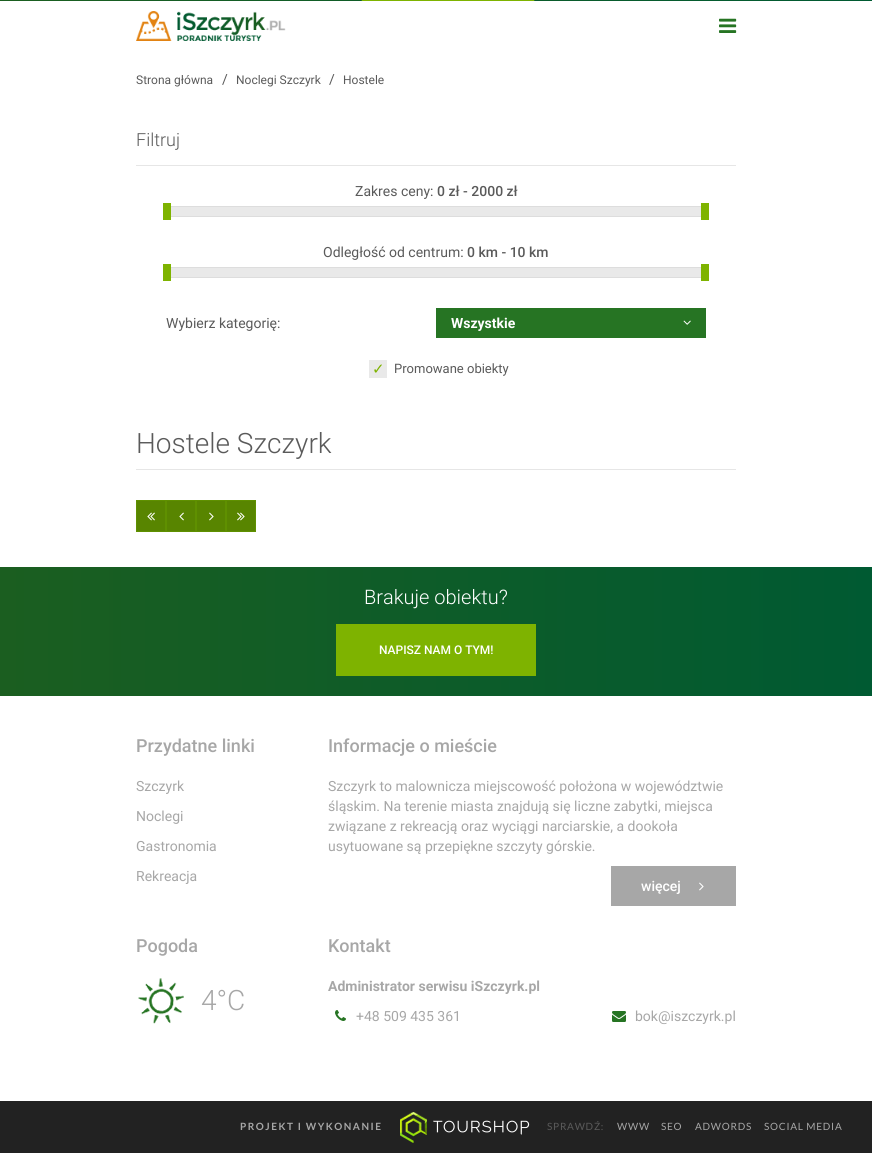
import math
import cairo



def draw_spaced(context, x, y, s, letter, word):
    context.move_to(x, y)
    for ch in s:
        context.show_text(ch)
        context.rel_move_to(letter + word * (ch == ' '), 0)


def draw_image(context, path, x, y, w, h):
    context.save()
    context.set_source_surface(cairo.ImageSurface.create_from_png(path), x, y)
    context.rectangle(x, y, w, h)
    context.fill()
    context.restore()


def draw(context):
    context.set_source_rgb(1, 1, 1)
    context.paint()
    gradient = cairo.LinearGradient(0, -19, 872, -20)
    gradient.add_color_stop_rgba(0, 27 / 255, 94 / 255, 32 / 255, 1)
    gradient.add_color_stop_rgba(1, 0, 90 / 255, 50 / 255, 1)
    context.set_source(gradient)
    context.rectangle(0, 0, 872, 1)
    context.fill()
    context.set_source_rgb(126 / 255, 179 / 255, 0)
    context.rectangle(361, 0, 174, 1)
    context.fill()
    context.set_source_rgb(38 / 255, 116 / 255, 35 / 255)
    context.rectangle(534, 0, 1, 1)
    context.fill()
    context.rectangle(361, 0, 1, 1)
    context.fill()
    draw_image(context, "images/1.png", 136, 11, 150, 30)
    draw_image(context, "images/2.png", 719, 18, 18, 15)
    context.set_source_rgb(230 / 255, 230 / 255, 230 / 255)
    context.rectangle(136, 165, 600, 1)
    context.fill()
    context.rectangle(166.5, 206.5, 539, 10)
    context.set_source_rgb(221 / 255, 221 / 255, 221 / 255)
    context.set_line_width(1)
    context.stroke()
    context.set_source_rgb(126 / 255, 179 / 255, 0)
    context.rectangle(163, 203, 8, 17)
    context.fill()
    context.set_source_rgb(233 / 255, 233 / 255, 233 / 255)
    context.rectangle(171, 207, 530, 9)
    context.fill()
    context.set_source_rgb(126 / 255, 179 / 255, 0)
    context.rectangle(701, 203, 8, 17)
    context.fill()
    context.rectangle(166.5, 267.5, 539, 10)
    context.set_source_rgb(221 / 255, 221 / 255, 221 / 255)
    context.stroke()
    context.set_source_rgb(126 / 255, 179 / 255, 0)
    context.rectangle(163, 264, 8, 17)
    context.fill()
    context.set_source_rgb(233 / 255, 233 / 255, 233 / 255)
    context.rectangle(171, 268, 530, 9)
    context.fill()
    context.set_source_rgb(126 / 255, 179 / 255, 0)
    context.rectangle(701, 264, 8, 17)
    context.fill()
    context.set_source_rgb(38 / 255, 116 / 255, 35 / 255)
    context.rectangle(436, 308, 270, 30)
    context.fill()
    draw_image(context, "images/3.png", 683, 320, 8, 5)
    context.set_source_rgb(233 / 255, 233 / 255, 233 / 255)
    context.rectangle(369, 360, 18, 18)
    context.fill()
    context.set_source_rgb(230 / 255, 230 / 255, 230 / 255)
    context.rectangle(136, 469, 600, 1)
    context.fill()
    context.set_source_rgb(88 / 255, 133 / 255, 0)
    context.rectangle(136.5, 500.5, 29, 31)
    context.fill_preserve()
    context.set_source_rgb(95 / 255, 144 / 255, 0)
    context.stroke()
    draw_image(context, "images/4.png", 147, 512, 8, 9)
    context.set_source_rgb(88 / 255, 133 / 255, 0)
    context.rectangle(166.5, 500.5, 29, 31)
    context.fill_preserve()
    context.set_source_rgb(95 / 255, 144 / 255, 0)
    context.stroke()
    draw_image(context, "images/5.png", 179, 512, 5, 9)
    context.set_source_rgb(88 / 255, 133 / 255, 0)
    context.rectangle(196.5, 500.5, 29, 31)
    context.fill_preserve()
    context.set_source_rgb(95 / 255, 144 / 255, 0)
    context.stroke()
    draw_image(context, "images/6.png", 209, 512, 5, 9)
    context.set_source_rgb(88 / 255, 133 / 255, 0)
    context.rectangle(226.5, 500.5, 29, 31)
    context.fill_preserve()
    context.set_source_rgb(95 / 255, 144 / 255, 0)
    context.stroke()
    draw_image(context, "images/7.png", 237, 512, 8, 9)
    gradient = cairo.LinearGradient(0, 632, 872, 632)
    gradient.add_color_stop_rgba(0, 27 / 255, 94 / 255, 32 / 255, 1)
    gradient.add_color_stop_rgba(1, 0, 90 / 255, 50 / 255, 1)
    context.set_source(gradient)
    context.rectangle(0, 567, 872, 129)
    context.fill()
    context.set_source_rgb(126 / 255, 179 / 255, 0)
    context.rectangle(336, 624, 200, 52)
    context.fill()
    context.set_source_rgb(167 / 255, 167 / 255, 167 / 255)
    context.rectangle(611, 866, 125, 40)
    context.fill()
    draw_image(context, "images/8.png", 699, 882, 5, 9)
    context.set_source_rgb(38 / 255, 116 / 255, 35 / 255)
    context.rectangle(138, 978, 46, 46)
    context.fill()
    draw_image(context, "images/9.png", 136, 976, 50, 50)
    draw_image(context, "images/10.png", 335, 1010, 11, 11)
    draw_image(context, "images/11.png", 612, 1011, 14, 11)
    context.set_source_rgb(34 / 255, 34 / 255, 34 / 255)
    context.rectangle(0, 1101, 872, 52)
    context.fill()
    draw_image(context, "images/12.png", 400, 1112, 27, 31)
    draw_image(context, "images/13.png", 433, 1120, 97, 15)
    context.select_font_face("Roboto")
    context.set_font_size(12)
    context.set_source_rgb(90 / 255, 90 / 255, 90 / 255)
    context.move_to(136, 84)
    context.show_text("Strona główna")
    context.set_font_size(14)
    context.move_to(222, 84)
    context.show_text("/")
    context.set_font_size(12)
    context.move_to(236, 84)
    context.show_text("Noclegi Szczyrk")
    context.set_font_size(14)
    context.move_to(329, 84)
    context.show_text("/")
    context.set_font_size(12)
    context.move_to(343, 84)
    context.show_text("Hostele")
    context.select_font_face("Roboto Light")
    context.set_font_size(18)
    context.move_to(136, 146)
    context.show_text("Filtruj")
    context.select_font_face("Roboto")
    context.set_font_size(14)
    context.move_to(355, 196)
    context.show_text("Zakres ceny:")
    context.select_font_face("Roboto Medium")
    context.move_to(437, 196)
    context.show_text("0 zł - 2000 zł")
    context.select_font_face("Roboto")
    context.move_to(323, 257)
    context.show_text("Odległość od centrum:")
    context.select_font_face("Roboto Medium")
    context.move_to(467, 257)
    context.show_text("0 km - 10 km")
    context.select_font_face("Roboto")
    context.move_to(166, 328)
    context.show_text("Wybierz kategorię:")
    context.select_font_face("Roboto", cairo.FontSlant.NORMAL, cairo.FontWeight.BOLD)
    context.set_source_rgb(1, 1, 1)
    context.move_to(451, 328)
    context.show_text("Wszystkie")
    context.select_font_face("DejaVu Sans")
    context.set_font_size(15)
    context.set_source_rgb(126 / 255, 179 / 255, 0)
    context.move_to(372, 374)
    context.show_text("✓")
    context.select_font_face("Roboto")
    context.set_font_size(13)
    context.set_source_rgb(90 / 255, 90 / 255, 90 / 255)
    context.move_to(394, 373)
    context.show_text("Promowane obiekty")
    context.select_font_face("Roboto Light")
    context.set_font_size(28)
    context.move_to(136, 453)
    context.show_text("Hostele Szczyrk")
    context.set_font_size(20)
    context.set_source_rgb(1, 1, 1)
    context.move_to(364, 604)
    context.show_text("Brakuje obiektu?")
    context.select_font_face("Roboto Medium")
    context.set_font_size(12)
    context.move_to(379, 654)
    context.show_text("NAPISZ NAM O TYM!")
    context.set_font_size(18)
    context.set_source_rgb(167 / 255, 167 / 255, 167 / 255)
    context.move_to(136, 752)
    context.show_text("Przydatne linki")
    context.select_font_face("Roboto")
    context.set_font_size(14)
    context.move_to(136, 791)
    context.show_text("Szczyrk")
    context.move_to(136, 821)
    context.show_text("Noclegi")
    context.move_to(136, 851)
    context.show_text("Gastronomia")
    context.move_to(136, 881)
    context.show_text("Rekreacja")
    context.select_font_face("Roboto Medium")
    context.set_font_size(18)
    context.move_to(328, 752)
    context.show_text("Informacje o mieście")
    context.select_font_face("Roboto")
    context.set_font_size(14)
    context.move_to(328, 791)
    context.show_text("Szczyrk to malownicza miejscowość położona w województwie")
    context.move_to(328, 811)
    context.show_text("śląskim. Na terenie miasta znajdują się liczne zabytki, miejsca")
    context.move_to(328, 831)
    context.show_text("związane z rekreacją oraz wyciągi narciarskie, a dookoła")
    context.move_to(328, 851)
    context.show_text("usytuowane są przepiękne szczyty górskie.")
    context.select_font_face("Roboto Medium")
    context.set_source_rgb(1, 1, 1)
    context.move_to(641, 891)
    context.show_text("więcej")
    context.set_font_size(18)
    context.set_source_rgb(167 / 255, 167 / 255, 167 / 255)
    context.move_to(136, 952)
    context.show_text("Pogoda")
    context.select_font_face("Roboto Light")
    context.set_font_size(28)
    context.move_to(201, 1010)
    context.show_text("4°C")
    context.select_font_face("Roboto Medium")
    context.set_font_size(18)
    context.move_to(328, 952)
    context.show_text("Kontakt")
    context.select_font_face("Roboto", cairo.FontSlant.NORMAL, cairo.FontWeight.BOLD)
    context.set_font_size(14)
    context.move_to(328, 991)
    context.show_text("Administrator serwisu iSzczyrk.pl")
    context.select_font_face("Roboto")
    context.move_to(356, 1021)
    context.show_text("+48 509 435 361")
    context.move_to(635, 1021)
    context.show_text("bok@iszczyrk.pl")
    context.select_font_face("Lato", cairo.FontSlant.NORMAL, cairo.FontWeight.BOLD)
    context.set_font_size(10)
    draw_spaced(context, 240, 1130, "PROJEKT I WYKONANIE", 1.5, 0)
    context.select_font_face("Lato")
    context.set_source_rgb(90 / 255, 90 / 255, 90 / 255)
    draw_spaced(context, 547, 1130, "SPRAWDŹ:", 0.75, 0)
    context.set_source_rgb(167 / 255, 167 / 255, 167 / 255)
    draw_spaced(context, 617, 1130, "WWW", 0.75, 0)
    draw_spaced(context, 661, 1130, "SEO", 0.75, 0)
    draw_spaced(context, 695, 1130, "ADWORDS", 0.75, 0)
    draw_spaced(context, 764, 1130, "SOCIAL MEDIA", 0.75, 0)


surface = cairo.ImageSurface(cairo.Format.RGB24, 872, 1153)
context = cairo.Context(surface)
options = cairo.FontOptions()
options.set_hint_metrics(cairo.HintMetrics.OFF)
options.set_hint_style(cairo.HintStyle.NONE)
context.set_font_options(options)
context.set_miter_limit(4)
draw(context)
surface.write_to_png("out.png")
